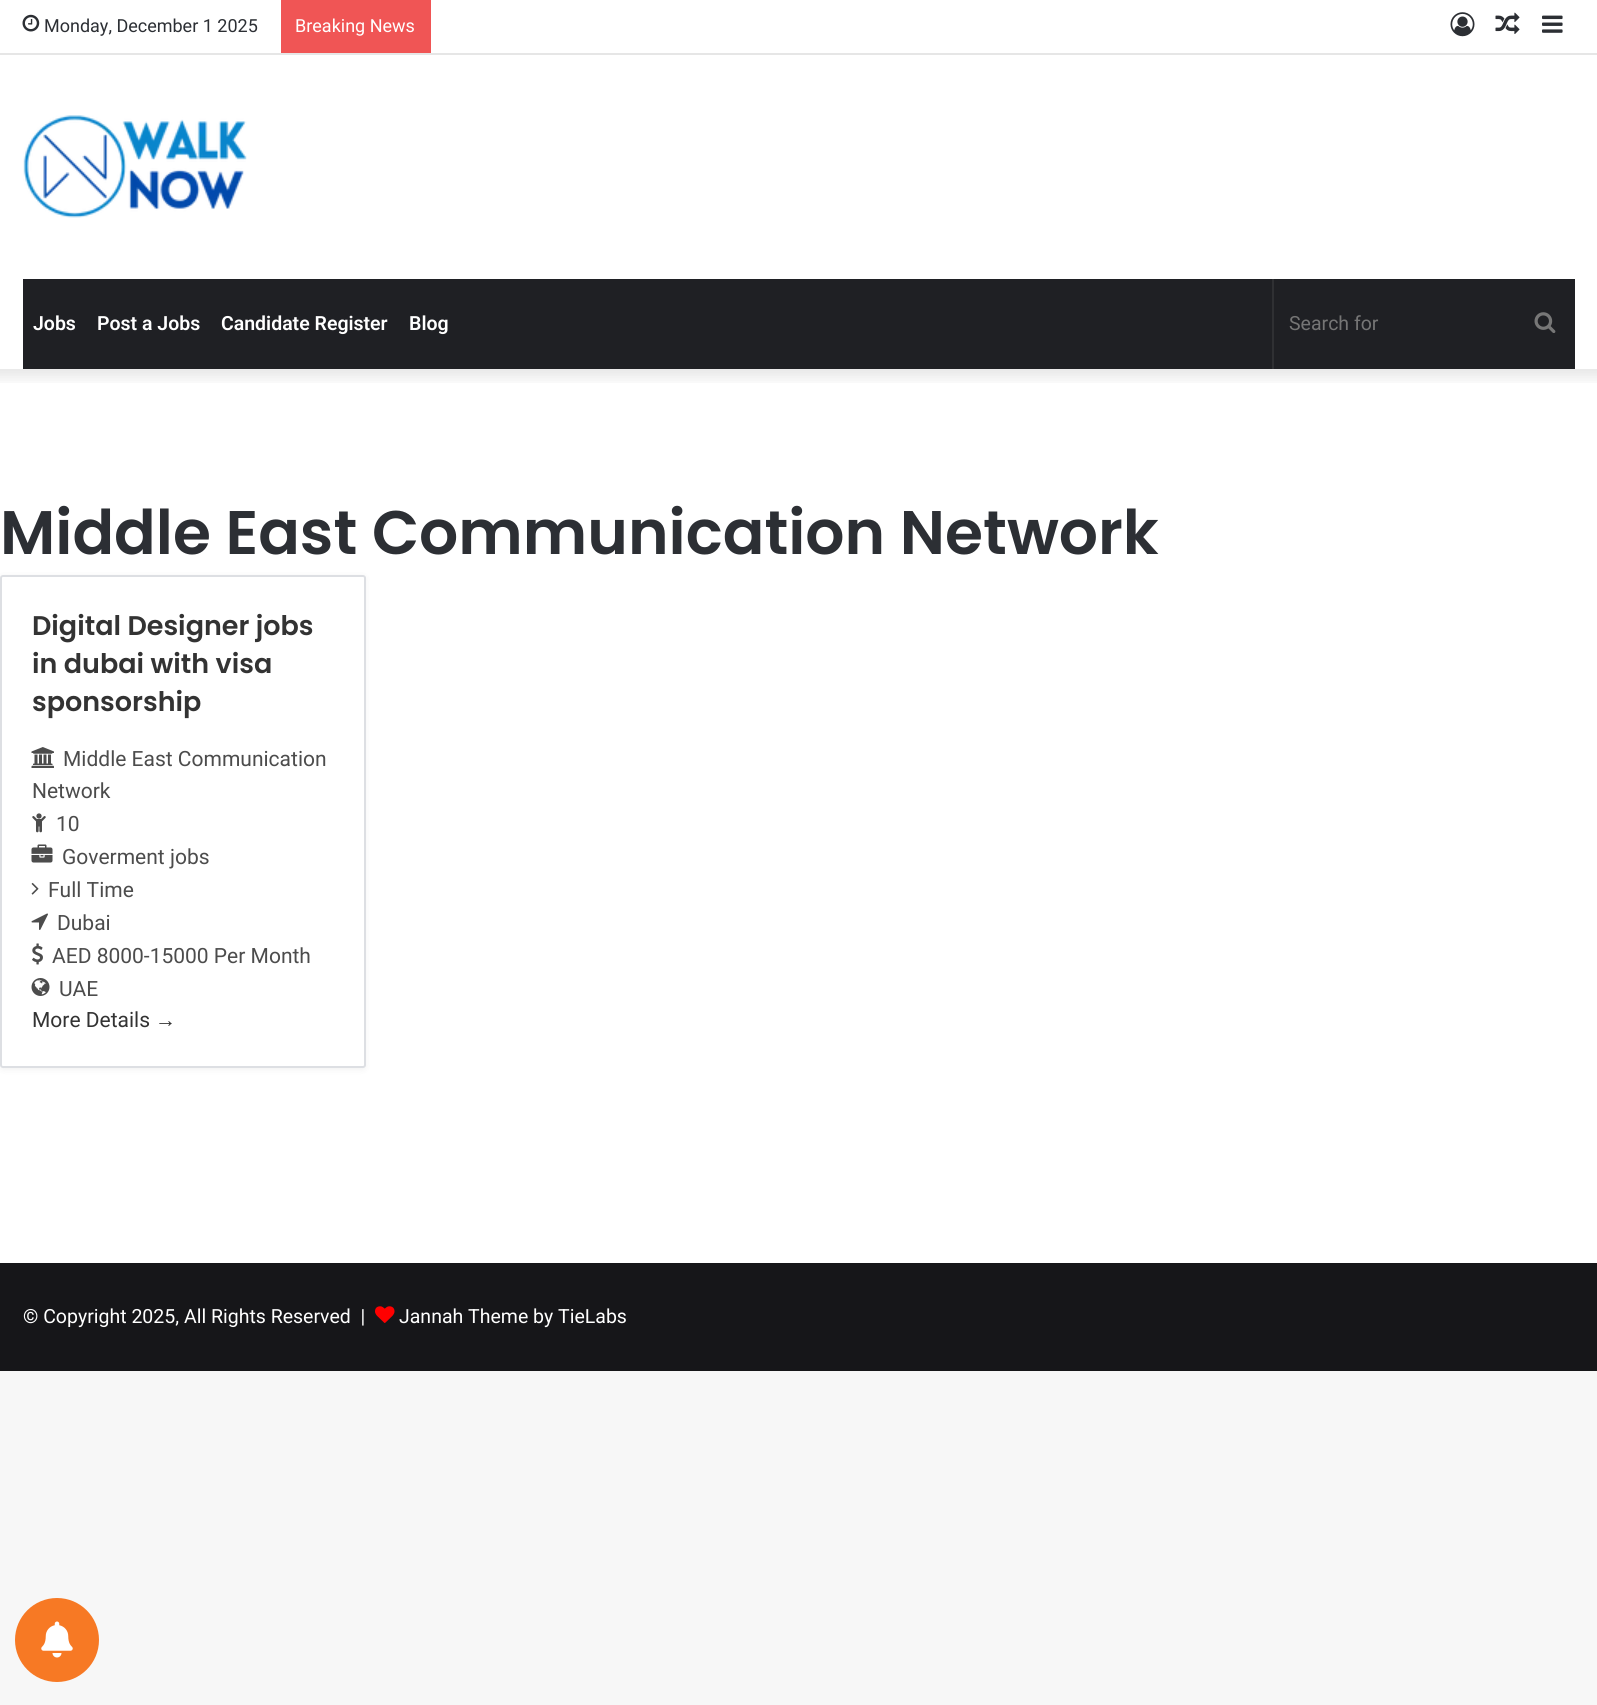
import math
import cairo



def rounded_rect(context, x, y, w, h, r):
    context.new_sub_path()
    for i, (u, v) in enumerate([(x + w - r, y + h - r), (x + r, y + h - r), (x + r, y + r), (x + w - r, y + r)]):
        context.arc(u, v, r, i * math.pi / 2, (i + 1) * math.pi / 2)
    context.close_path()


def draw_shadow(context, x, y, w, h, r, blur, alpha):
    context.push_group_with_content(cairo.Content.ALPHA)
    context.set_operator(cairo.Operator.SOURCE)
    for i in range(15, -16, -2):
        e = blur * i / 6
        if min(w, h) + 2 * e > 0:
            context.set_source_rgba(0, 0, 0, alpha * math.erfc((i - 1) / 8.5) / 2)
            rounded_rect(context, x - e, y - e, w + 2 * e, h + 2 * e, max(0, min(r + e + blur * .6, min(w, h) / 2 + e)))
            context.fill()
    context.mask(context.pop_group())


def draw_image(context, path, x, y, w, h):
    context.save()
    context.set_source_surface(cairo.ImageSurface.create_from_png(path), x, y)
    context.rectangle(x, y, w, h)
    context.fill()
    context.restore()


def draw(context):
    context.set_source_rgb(247 / 255, 247 / 255, 247 / 255)
    context.paint()
    context.set_source_rgb(1, 1, 1)
    context.rectangle(0, 0, 1597, 1263)
    context.fill()
    context.save()
    context.rectangle(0, 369, 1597, 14)
    context.clip()
    context.set_source_rgb(0, 0, 0)
    draw_shadow(context, -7, -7, 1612, 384, 0, 7.5, 0.1)
    context.restore()
    context.set_source_rgb(230 / 255, 230 / 255, 230 / 255)
    context.rectangle(0, 53, 1597, 2)
    context.fill()
    draw_image(context, "images/1.png", 22, 14, 18, 18)
    context.set_source_rgb(240 / 255, 85 / 255, 85 / 255)
    context.rectangle(281, 0, 150, 53)
    context.fill()
    draw_image(context, "images/2.png", 1450, 12, 25, 25)
    draw_image(context, "images/3.png", 1495, 12, 25, 22)
    draw_image(context, "images/4.png", 1542, 15, 21, 18)
    draw_image(context, "images/5.png", 23, 115, 224, 103)
    context.set_source_rgb(31 / 255, 32 / 255, 36 / 255)
    context.rectangle(23, 279, 1552, 90)
    context.fill()
    context.set_source_rgb(47 / 255, 48 / 255, 51 / 255)
    context.rectangle(1272, 279, 2, 90)
    context.fill()
    draw_image(context, "images/6.png", 1534, 312, 22, 21)
    context.set_source_rgb(0, 0, 0)
    draw_shadow(context, 0, 576, 366, 494, 3, 3, 0.05)
    context.set_source_rgb(1, 1, 1)
    rounded_rect(context, 1, 576, 364, 491, 2)
    context.fill_preserve()
    context.set_source_rgb(221 / 255, 223 / 255, 227 / 255)
    context.stroke()
    draw_image(context, "images/7.png", 31, 747, 23, 21)
    draw_image(context, "images/8.png", 32, 813, 14, 20)
    draw_image(context, "images/9.png", 31, 844, 22, 19)
    draw_image(context, "images/10.png", 31, 882, 8, 13)
    draw_image(context, "images/11.png", 31, 913, 17, 17)
    draw_image(context, "images/12.png", 32, 943, 11, 22)
    draw_image(context, "images/13.png", 31, 978, 19, 18)
    context.set_source_rgb(22 / 255, 22 / 255, 25 / 255)
    context.rectangle(0, 1263, 1597, 108)
    context.fill()
    draw_image(context, "images/14.png", 375, 1306, 20, 17)
    context.set_source_rgb(247 / 255, 121 / 255, 36 / 255)
    context.arc(57, 1640, 42, 0, 2 * math.pi)
    context.fill()
    draw_image(context, "images/15.png", 41, 1621, 32, 37)
    context.select_font_face("Roboto")
    context.set_font_size(18)
    context.set_source_rgb(44 / 255, 47 / 255, 52 / 255)
    context.move_to(44, 32)
    context.show_text("Monday, December 1 2025")
    context.set_source_rgb(1, 1, 1)
    context.move_to(295, 32)
    context.show_text("Breaking News")
    context.select_font_face("Roboto SemiBold")
    context.set_font_size(19.5)
    context.move_to(33, 330)
    context.show_text("Jobs")
    context.move_to(97, 330)
    context.show_text("Post a Jobs")
    context.move_to(221, 330)
    context.show_text("Candidate Register")
    context.move_to(409, 330)
    context.show_text("Blog")
    context.select_font_face("Roboto")
    context.set_source_rgb(117 / 255, 117 / 255, 117 / 255)
    context.move_to(1289, 330)
    context.show_text("Search for")
    context.select_font_face("Poppins SemiBold")
    context.set_font_size(61.5)
    context.set_source_rgb(44 / 255, 47 / 255, 52 / 255)
    context.move_to(0, 554)
    context.show_text("Middle East Communication Network")
    context.set_font_size(27)
    context.set_source_rgb(51 / 255, 51 / 255, 51 / 255)
    context.move_to(32, 635)
    context.show_text("Digital Designer jobs")
    context.move_to(32, 673)
    context.show_text("in dubai with visa")
    context.move_to(32, 711)
    context.show_text("sponsorship")
    context.select_font_face("Roboto")
    context.set_font_size(21)
    context.set_source_rgb(76 / 255, 76 / 255, 76 / 255)
    context.move_to(63, 766)
    context.show_text("Middle East Communication")
    context.move_to(32, 798)
    context.show_text("Network")
    context.move_to(56, 831)
    context.show_text("10")
    context.move_to(62, 864)
    context.show_text("Goverment jobs")
    context.move_to(48, 897)
    context.show_text("Full Time")
    context.move_to(57, 930)
    context.show_text("Dubai")
    context.move_to(52, 963)
    context.show_text("AED 8000-15000 Per Month")
    context.move_to(59, 996)
    context.show_text("UAE")
    context.set_source_rgb(51 / 255, 51 / 255, 51 / 255)
    context.move_to(32, 1027)
    context.show_text("More Details")
    context.select_font_face("Liberation Sans")
    context.move_to(155, 1027)
    context.show_text("→")
    context.select_font_face("Roboto")
    context.set_font_size(19.5)
    context.set_source_rgb(1, 1, 1)
    context.move_to(23, 1323)
    context.show_text("© Copyright 2025, All Rights Reserved  |")
    context.move_to(399, 1323)
    context.show_text("Jannah Theme by TieLabs")


surface = cairo.ImageSurface(cairo.Format.RGB24, 1597, 1705)
context = cairo.Context(surface)
options = cairo.FontOptions()
options.set_hint_metrics(cairo.HintMetrics.OFF)
options.set_hint_style(cairo.HintStyle.NONE)
context.set_font_options(options)
context.set_miter_limit(4)
draw(context)
surface.write_to_png("out.png")
